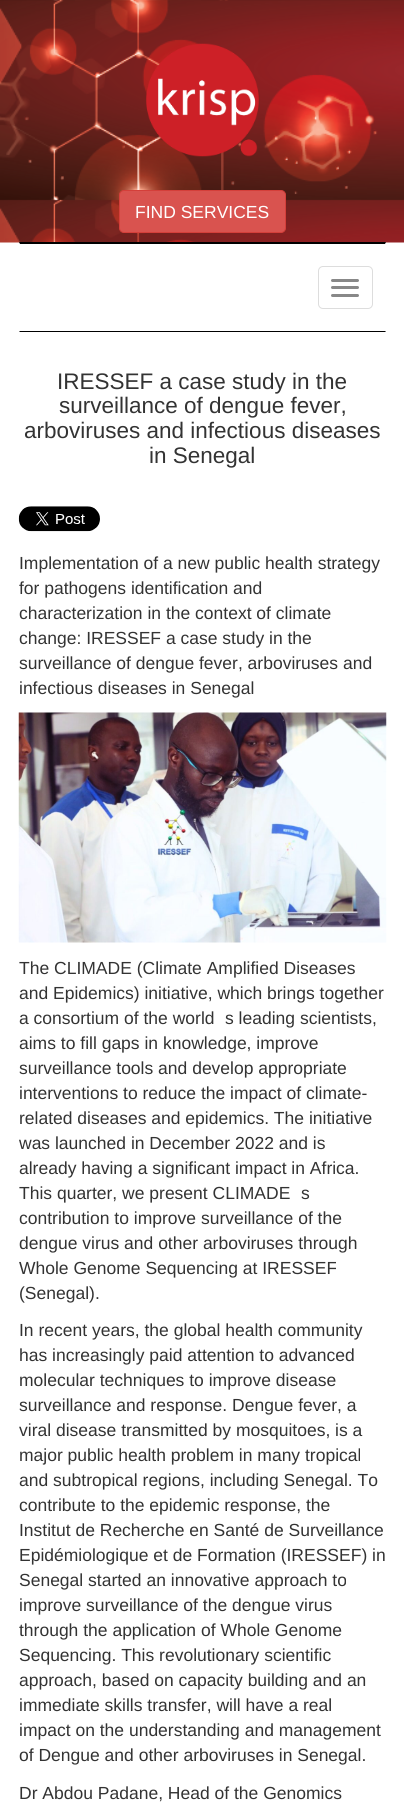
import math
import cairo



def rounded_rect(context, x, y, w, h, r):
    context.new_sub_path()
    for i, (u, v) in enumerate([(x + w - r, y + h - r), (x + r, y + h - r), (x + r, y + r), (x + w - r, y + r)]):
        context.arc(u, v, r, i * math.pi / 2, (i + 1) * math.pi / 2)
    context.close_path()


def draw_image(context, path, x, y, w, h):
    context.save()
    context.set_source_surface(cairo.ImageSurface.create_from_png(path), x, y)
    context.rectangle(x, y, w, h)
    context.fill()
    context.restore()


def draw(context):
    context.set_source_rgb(1, 1, 1)
    context.paint()
    draw_image(context, "images/1.png", 0, 0, 404, 243)
    draw_image(context, "images/2.png", 146, 43, 113, 114)
    context.set_source_rgb(217 / 255, 83 / 255, 79 / 255)
    rounded_rect(context, 119.5, 190.5, 166, 42, 4.5)
    context.fill_preserve()
    context.set_source_rgb(212 / 255, 63 / 255, 58 / 255)
    context.set_line_width(1)
    context.stroke()
    context.set_source_rgb(0, 0, 0)
    context.new_path()
    context.move_to(19, 242)
    context.line_to(386, 242)
    context.line_to(385, 244)
    context.line_to(20, 244)
    context.close_path()
    context.fill()
    context.new_path()
    context.move_to(386, 332)
    context.line_to(19, 332)
    context.line_to(20, 331)
    context.line_to(385, 331)
    context.close_path()
    context.fill()
    rounded_rect(context, 318.5, 266.5, 54, 42, 4.5)
    context.set_source_rgb(221 / 255, 221 / 255, 221 / 255)
    context.stroke()
    context.set_source_rgb(136 / 255, 136 / 255, 136 / 255)
    rounded_rect(context, 331, 279, 28, 3, 1.5)
    context.fill()
    rounded_rect(context, 331, 286, 28, 3, 1.5)
    context.fill()
    rounded_rect(context, 331, 294, 28, 3, 1.5)
    context.fill()
    draw_image(context, "images/3.png", 18, 506, 82, 26)
    draw_image(context, "images/4.png", 18, 712, 369, 231)
    context.select_font_face("Liberation Sans")
    context.set_font_size(17.5)
    context.set_source_rgb(1, 1, 1)
    context.move_to(135, 218)
    context.show_text("FIND SERVICES")
    context.set_font_size(22.5)
    context.set_source_rgb(51 / 255, 51 / 255, 51 / 255)
    context.move_to(57, 389)
    context.show_text("IRESSEF a case study in the")
    context.move_to(59, 413)
    context.show_text("surveillance of dengue fever,")
    context.move_to(24, 438)
    context.show_text("arboviruses and infectious diseases")
    context.move_to(149, 463)
    context.show_text("in Senegal")
    context.set_font_size(17.5)
    context.move_to(19, 569)
    context.show_text("Implementation of a new public health strategy")
    context.move_to(19, 594)
    context.show_text("for pathogens identification and")
    context.move_to(19, 619)
    context.show_text("characterization in the context of climate")
    context.move_to(19, 644)
    context.show_text("change: IRESSEF a case study in the")
    context.move_to(19, 669)
    context.show_text("surveillance of dengue fever, arboviruses and")
    context.move_to(19, 694)
    context.show_text("infectious diseases in Senegal")
    context.move_to(19, 974)
    context.show_text("The CLIMADE (Climate Amplified Diseases")
    context.move_to(19, 999)
    context.show_text("and Epidemics) initiative, which brings together")
    context.move_to(19, 1024)
    context.show_text("a consortium of the world")
    context.move_to(225, 1024)
    context.show_text("s leading scientists,")
    context.move_to(19, 1049)
    context.show_text("aims to fill gaps in knowledge, improve")
    context.move_to(19, 1074)
    context.show_text("surveillance tools and develop appropriate")
    context.move_to(19, 1099)
    context.show_text("interventions to reduce the impact of climate-")
    context.move_to(19, 1124)
    context.show_text("related diseases and epidemics. The initiative")
    context.move_to(19, 1149)
    context.show_text("was launched in December 2022 and is")
    context.move_to(19, 1174)
    context.show_text("already having a significant impact in Africa.")
    context.move_to(19, 1199)
    context.show_text("This quarter, we present CLIMADE")
    context.move_to(301, 1199)
    context.show_text("s")
    context.move_to(19, 1224)
    context.show_text("contribution to improve surveillance of the")
    context.move_to(19, 1249)
    context.show_text("dengue virus and other arboviruses through")
    context.move_to(19, 1274)
    context.show_text("Whole Genome Sequencing at IRESSEF")
    context.move_to(19, 1299)
    context.show_text("(Senegal).")
    context.move_to(19, 1336)
    context.show_text("In recent years, the global health community")
    context.move_to(19, 1361)
    context.show_text("has increasingly paid attention to advanced")
    context.move_to(19, 1386)
    context.show_text("molecular techniques to improve disease")
    context.move_to(19, 1411)
    context.show_text("surveillance and response. Dengue fever, a")
    context.move_to(19, 1436)
    context.show_text("viral disease transmitted by mosquitoes, is a")
    context.move_to(19, 1461)
    context.show_text("major public health problem in many tropical")
    context.move_to(19, 1486)
    context.show_text("and subtropical regions, including Senegal. To")
    context.move_to(19, 1511)
    context.show_text("contribute to the epidemic response, the")
    context.move_to(19, 1536)
    context.show_text("Institut de Recherche en Santé de Surveillance")
    context.move_to(19, 1561)
    context.show_text("Epidémiologique et de Formation (IRESSEF) in")
    context.move_to(19, 1586)
    context.show_text("Senegal started an innovative approach to")
    context.move_to(19, 1611)
    context.show_text("improve surveillance of the dengue virus")
    context.move_to(19, 1636)
    context.show_text("through the application of Whole Genome")
    context.move_to(19, 1661)
    context.show_text("Sequencing. This revolutionary scientific")
    context.move_to(19, 1686)
    context.show_text("approach, based on capacity building and an")
    context.move_to(19, 1711)
    context.show_text("immediate skills transfer, will have a real")
    context.move_to(19, 1736)
    context.show_text("impact on the understanding and management")
    context.move_to(19, 1761)
    context.show_text("of Dengue and other arboviruses in Senegal.")
    context.move_to(19, 1799)
    context.show_text("Dr Abdou Padane, Head of the Genomics")


surface = cairo.ImageSurface(cairo.Format.RGB24, 404, 1808)
context = cairo.Context(surface)
options = cairo.FontOptions()
options.set_hint_metrics(cairo.HintMetrics.OFF)
options.set_hint_style(cairo.HintStyle.NONE)
context.set_font_options(options)
context.set_miter_limit(4)
draw(context)
surface.write_to_png("out.png")
